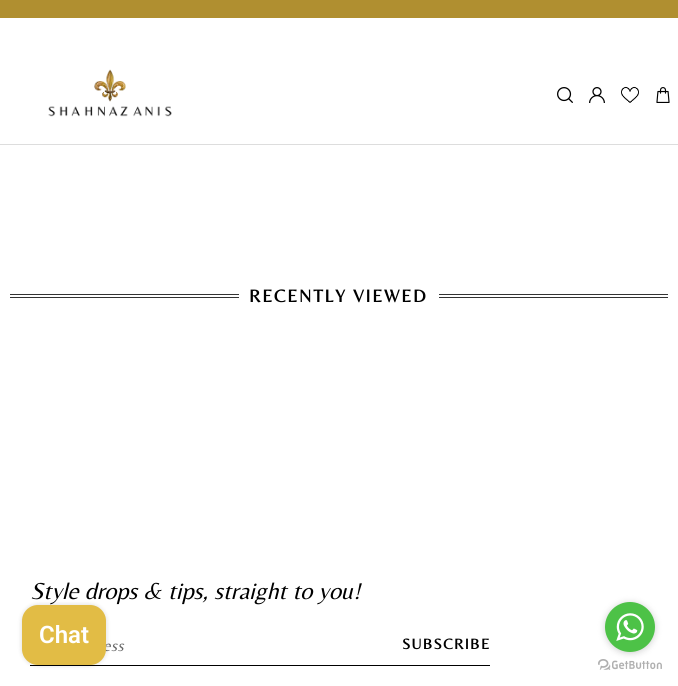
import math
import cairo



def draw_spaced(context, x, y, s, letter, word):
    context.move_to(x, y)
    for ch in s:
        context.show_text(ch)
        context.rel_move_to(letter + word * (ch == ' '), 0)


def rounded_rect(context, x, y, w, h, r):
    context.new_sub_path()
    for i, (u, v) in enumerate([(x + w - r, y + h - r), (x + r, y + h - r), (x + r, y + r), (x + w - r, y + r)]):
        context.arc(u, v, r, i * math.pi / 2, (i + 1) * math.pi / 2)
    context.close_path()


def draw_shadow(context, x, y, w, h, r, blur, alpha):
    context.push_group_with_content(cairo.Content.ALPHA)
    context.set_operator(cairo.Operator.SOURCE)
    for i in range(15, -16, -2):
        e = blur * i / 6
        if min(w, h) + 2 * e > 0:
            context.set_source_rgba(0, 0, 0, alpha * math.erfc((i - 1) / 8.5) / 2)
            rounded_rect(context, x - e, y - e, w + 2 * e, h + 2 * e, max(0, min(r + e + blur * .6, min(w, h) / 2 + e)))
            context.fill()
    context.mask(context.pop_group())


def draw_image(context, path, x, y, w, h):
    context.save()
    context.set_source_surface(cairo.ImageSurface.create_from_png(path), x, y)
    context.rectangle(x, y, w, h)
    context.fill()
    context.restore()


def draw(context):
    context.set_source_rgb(1, 1, 1)
    context.paint()
    context.set_source_rgb(176 / 255, 143 / 255, 48 / 255)
    context.rectangle(0, 0, 678, 18)
    context.fill()
    context.set_source_rgb(221 / 255, 221 / 255, 221 / 255)
    context.rectangle(0, 144, 678, 1)
    context.fill()
    draw_image(context, "images/1.png", 48, 69, 124, 48)
    draw_image(context, "images/2.png", 557, 87, 16, 16)
    draw_image(context, "images/3.png", 589, 87, 16, 16)
    draw_image(context, "images/4.png", 621, 86, 18, 17)
    draw_image(context, "images/5.png", 656, 87, 14, 16)
    context.set_source_rgb(51 / 255, 51 / 255, 51 / 255)
    context.rectangle(10, 294, 658, 1)
    context.fill()
    context.rectangle(10, 297, 658, 1)
    context.fill()
    context.set_source_rgb(1, 1, 1)
    context.rectangle(239, 294, 200, 4)
    context.fill()
    context.set_source_rgb(0, 0, 0)
    context.rectangle(30, 665, 460, 1)
    context.fill()
    draw_image(context, "images/7.png", 598, 659, 64, 11)
    context.set_source_rgb(136 / 255, 136 / 255, 136 / 255)
    draw_shadow(context, 605, 603, 50, 50, 25, 3.5, 0.4)
    context.set_source_rgb(77 / 255, 194 / 255, 71 / 255)
    context.arc(630, 627, 25, 0, 2 * math.pi)
    context.fill()
    draw_image(context, "images/6.png", 616, 613, 28, 28)
    context.set_source_rgb(0, 0, 0)
    draw_shadow(context, 22, 605, 84, 60, 16, 2.5, 0.15)
    context.select_font_face("Belleza", cairo.FontSlant.NORMAL, cairo.FontWeight.BOLD)
    context.set_font_size(18)
    context.set_source_rgb(0, 0, 0)
    draw_spaced(context, 249, 302, "RECENTLY VIEWED", 1.75, 0)
    context.select_font_face("Belleza", cairo.FontSlant.ITALIC)
    context.set_font_size(24)
    context.move_to(30, 599)
    context.show_text("Style drops & tips, straight to you!")
    context.set_font_size(16)
    context.set_source_rgb(102 / 255, 102 / 255, 102 / 255)
    draw_spaced(context, 103, 651, "ess", 0.5, 0)
    context.select_font_face("Belleza", cairo.FontSlant.NORMAL, cairo.FontWeight.BOLD)
    context.set_font_size(15)
    context.set_source_rgb(0, 0, 0)
    draw_spaced(context, 402, 649, "SUBSCRIBE", 1.25, 0)
    context.set_source_rgb(226 / 255, 188 / 255, 69 / 255)
    rounded_rect(context, 22, 605, 84, 60, 16)
    context.fill()
    context.select_font_face("Roboto SemiBold")
    context.set_font_size(24)
    context.set_source_rgb(1, 1, 1)
    context.move_to(39, 643)
    context.show_text("Chat")


surface = cairo.ImageSurface(cairo.Format.RGB24, 678, 686)
context = cairo.Context(surface)
options = cairo.FontOptions()
options.set_hint_metrics(cairo.HintMetrics.OFF)
options.set_hint_style(cairo.HintStyle.NONE)
context.set_font_options(options)
context.set_miter_limit(4)
draw(context)
surface.write_to_png("out.png")
